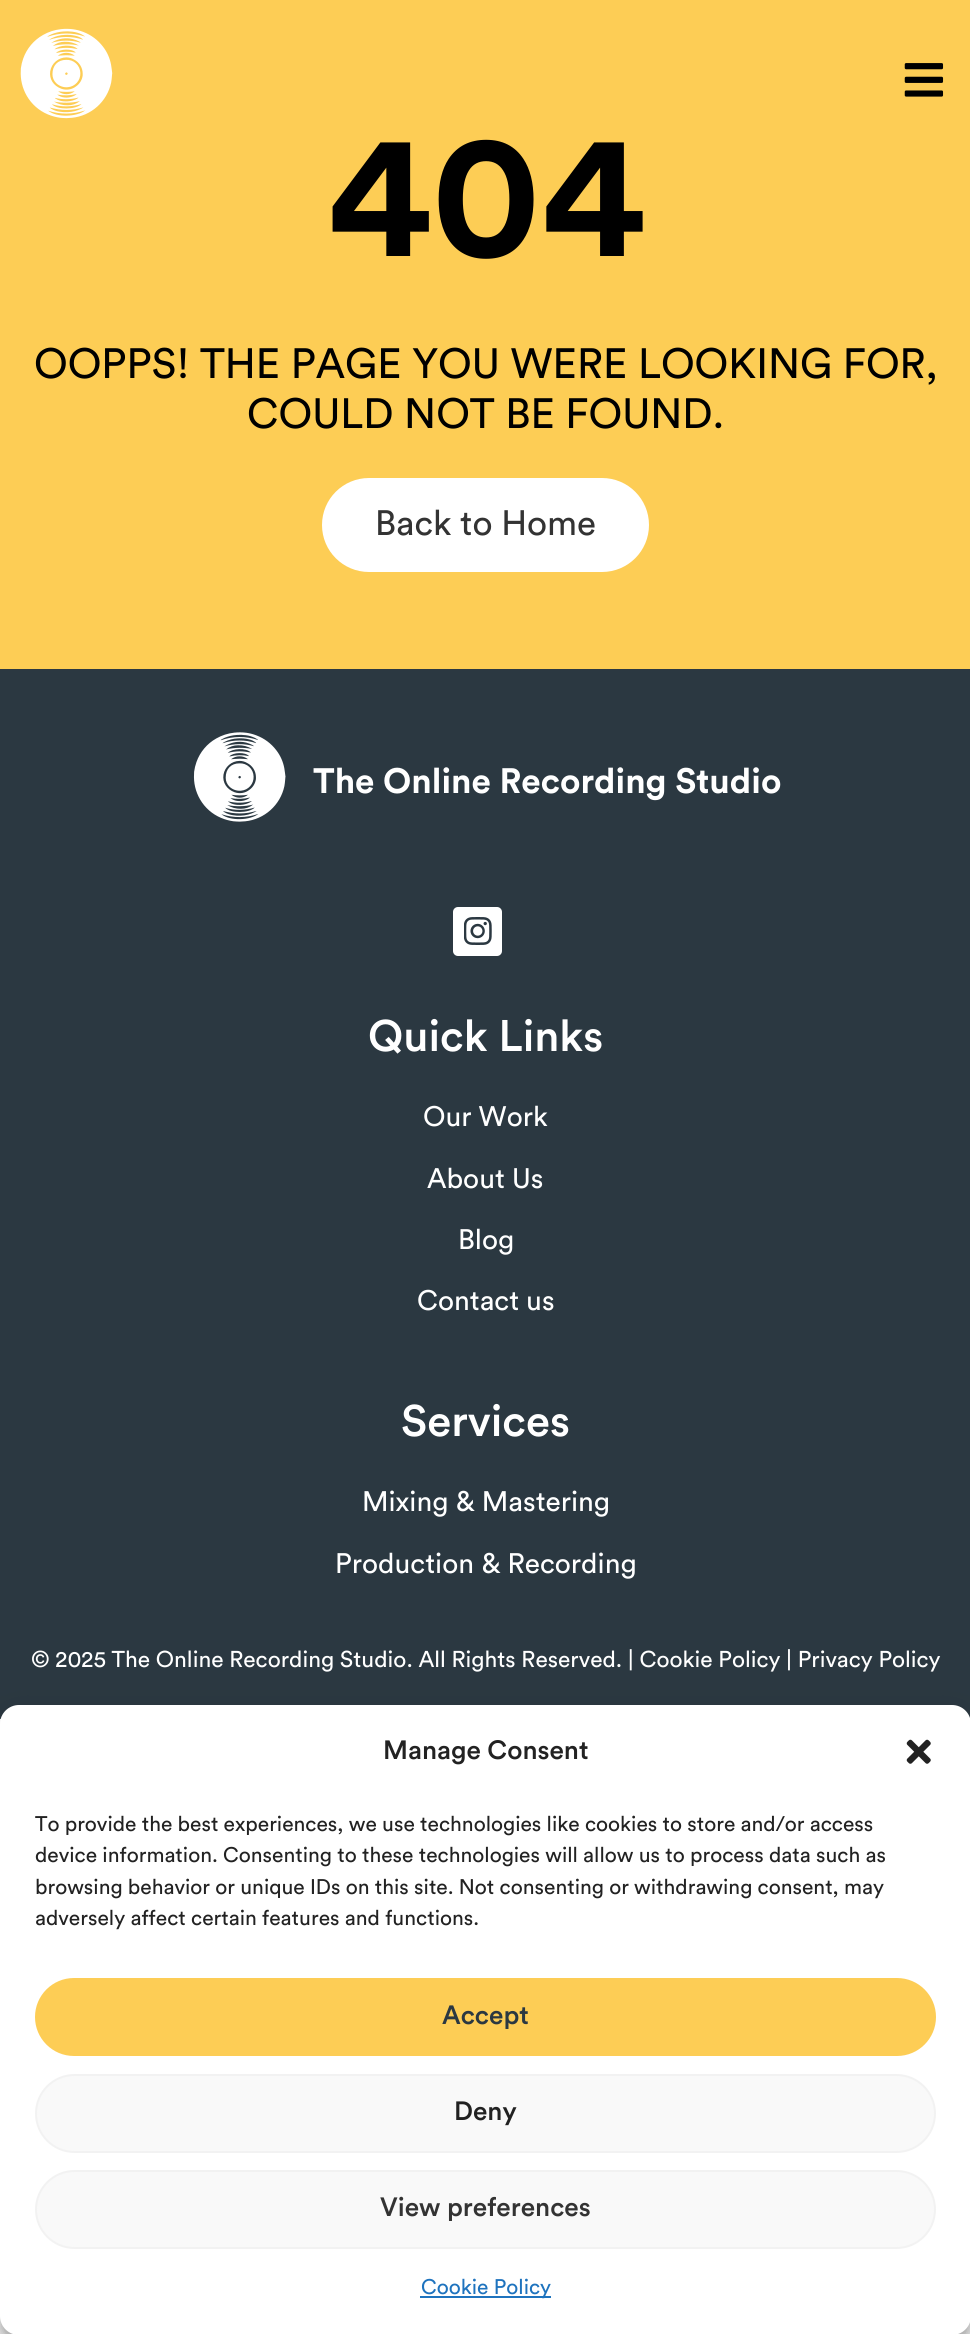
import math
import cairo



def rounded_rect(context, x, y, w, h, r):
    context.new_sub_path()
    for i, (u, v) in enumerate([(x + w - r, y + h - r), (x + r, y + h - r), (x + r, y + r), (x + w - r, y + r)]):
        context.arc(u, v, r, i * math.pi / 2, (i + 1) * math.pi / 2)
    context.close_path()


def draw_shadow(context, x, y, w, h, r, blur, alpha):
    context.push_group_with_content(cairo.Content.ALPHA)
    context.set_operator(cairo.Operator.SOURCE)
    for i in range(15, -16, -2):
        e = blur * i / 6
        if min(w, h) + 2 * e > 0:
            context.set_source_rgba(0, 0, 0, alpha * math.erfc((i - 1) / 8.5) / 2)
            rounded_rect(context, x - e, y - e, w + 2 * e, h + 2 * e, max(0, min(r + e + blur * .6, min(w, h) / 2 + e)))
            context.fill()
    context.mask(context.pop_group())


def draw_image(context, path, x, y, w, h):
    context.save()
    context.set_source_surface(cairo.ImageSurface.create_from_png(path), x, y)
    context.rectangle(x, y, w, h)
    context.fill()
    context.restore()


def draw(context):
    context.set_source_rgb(1, 1, 1)
    context.paint()
    context.set_source_rgb(253 / 255, 205 / 255, 85 / 255)
    context.rectangle(0, 0, 970, 669)
    context.fill()
    draw_image(context, "images/1.png", 20, 28, 93, 91)
    draw_image(context, "images/2.png", 904, 63, 40, 34)
    context.set_source_rgb(1, 1, 1)
    rounded_rect(context, 322, 478, 327, 94, 47)
    context.fill()
    context.set_source_rgb(43 / 255, 56 / 255, 65 / 255)
    context.rectangle(0, 669, 970, 1050)
    context.fill()
    draw_image(context, "images/3.png", 193, 732, 93, 90)
    context.set_source_rgb(1, 1, 1)
    rounded_rect(context, 453, 907, 49, 49, 5)
    context.fill()
    draw_image(context, "images/4.png", 464, 917, 28, 28)
    context.set_source_rgb(0, 0, 0)
    draw_shadow(context, 0, 1715, 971, 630, 19, 5, 0.23)
    draw_shadow(context, 0, 1722, 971, 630, 19, 17.5, 0.19)
    context.set_source_rgb(1, 1, 1)
    rounded_rect(context, 0, 1705, 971, 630, 19)
    context.fill()
    draw_image(context, "images/5.png", 906, 1739, 25, 25)
    context.set_source_rgb(253 / 255, 205 / 255, 85 / 255)
    rounded_rect(context, 36, 1979, 899, 76, 38)
    context.fill_preserve()
    context.stroke()
    context.set_source_rgb(249 / 255, 249 / 255, 249 / 255)
    rounded_rect(context, 36, 2075, 899, 77, 38.5)
    context.fill_preserve()
    context.set_source_rgb(242 / 255, 242 / 255, 242 / 255)
    context.stroke()
    context.set_source_rgb(249 / 255, 249 / 255, 249 / 255)
    rounded_rect(context, 36, 2171, 899, 77, 38.5)
    context.fill_preserve()
    context.set_source_rgb(242 / 255, 242 / 255, 242 / 255)
    context.stroke()
    context.set_source_rgb(30 / 255, 115 / 255, 190 / 255)
    context.rectangle(420, 2296, 131, 2)
    context.fill()
    context.select_font_face("Circular", cairo.FontSlant.NORMAL, cairo.FontWeight.BOLD)
    context.set_font_size(175)
    context.set_source_rgb(0, 0, 0)
    context.move_to(327, 256)
    context.show_text("404")
    context.select_font_face("Circular")
    context.set_font_size(42)
    context.move_to(34, 378)
    context.show_text("OOPPS! THE PAGE YOU WERE LOOKING FOR,")
    context.move_to(247, 428)
    context.show_text("COULD NOT BE FOUND.")
    context.set_font_size(35)
    context.set_source_rgb(51 / 255, 51 / 255, 51 / 255)
    context.move_to(375, 535)
    context.show_text("Back to Home")
    context.select_font_face("Circular", cairo.FontSlant.NORMAL, cairo.FontWeight.BOLD)
    context.set_source_rgb(1, 1, 1)
    context.move_to(313, 793)
    context.show_text("The Online Recording Studio")
    context.select_font_face("Circular Medium")
    context.set_font_size(43.75)
    context.move_to(368, 1051)
    context.show_text("Quick Links")
    context.select_font_face("Circular")
    context.set_font_size(28)
    context.move_to(423, 1126)
    context.show_text("Our Work")
    context.move_to(427, 1188)
    context.show_text("About Us")
    context.move_to(458, 1249)
    context.show_text("Blog")
    context.move_to(417, 1310)
    context.show_text("Contact us")
    context.select_font_face("Circular Medium")
    context.set_font_size(43.75)
    context.move_to(401, 1436)
    context.show_text("Services")
    context.select_font_face("Circular")
    context.set_font_size(28)
    context.move_to(362, 1511)
    context.show_text("Mixing & Mastering")
    context.move_to(335, 1573)
    context.show_text("Production & Recording")
    context.set_font_size(22.75)
    context.move_to(31, 1667)
    context.show_text("© 2025 The Online Recording Studio. All Rights Reserved. | Cookie Policy | Privacy Policy")
    context.select_font_face("Circular Medium")
    context.set_font_size(26.25)
    context.set_source_rgb(34 / 255, 34 / 255, 34 / 255)
    context.move_to(383, 1759)
    context.show_text("Manage Consent")
    context.select_font_face("Circular")
    context.set_font_size(21)
    context.move_to(35, 1831)
    context.show_text("To provide the best experiences, we use technologies like cookies to store and/or access")
    context.move_to(35, 1862)
    context.show_text("device information. Consenting to these technologies will allow us to process data such as")
    context.move_to(35, 1894)
    context.show_text("browsing behavior or unique IDs on this site. Not consenting or withdrawing consent, may")
    context.move_to(35, 1925)
    context.show_text("adversely affect certain features and functions.")
    context.select_font_face("Circular Medium")
    context.set_font_size(26.25)
    context.set_source_rgb(43 / 255, 56 / 255, 65 / 255)
    context.move_to(442, 2024)
    context.show_text("Accept")
    context.set_source_rgb(34 / 255, 34 / 255, 34 / 255)
    context.move_to(454, 2120)
    context.show_text("Deny")
    context.set_source_rgb(51 / 255, 51 / 255, 51 / 255)
    context.move_to(380, 2216)
    context.show_text("View preferences")
    context.select_font_face("Circular")
    context.set_font_size(21)
    context.set_source_rgb(30 / 255, 115 / 255, 190 / 255)
    context.move_to(421, 2294)
    context.show_text("Cookie Policy")


surface = cairo.ImageSurface(cairo.Format.RGB24, 970, 2334)
context = cairo.Context(surface)
options = cairo.FontOptions()
options.set_hint_metrics(cairo.HintMetrics.OFF)
options.set_hint_style(cairo.HintStyle.NONE)
context.set_font_options(options)
context.set_miter_limit(4)
draw(context)
surface.write_to_png("out.png")
